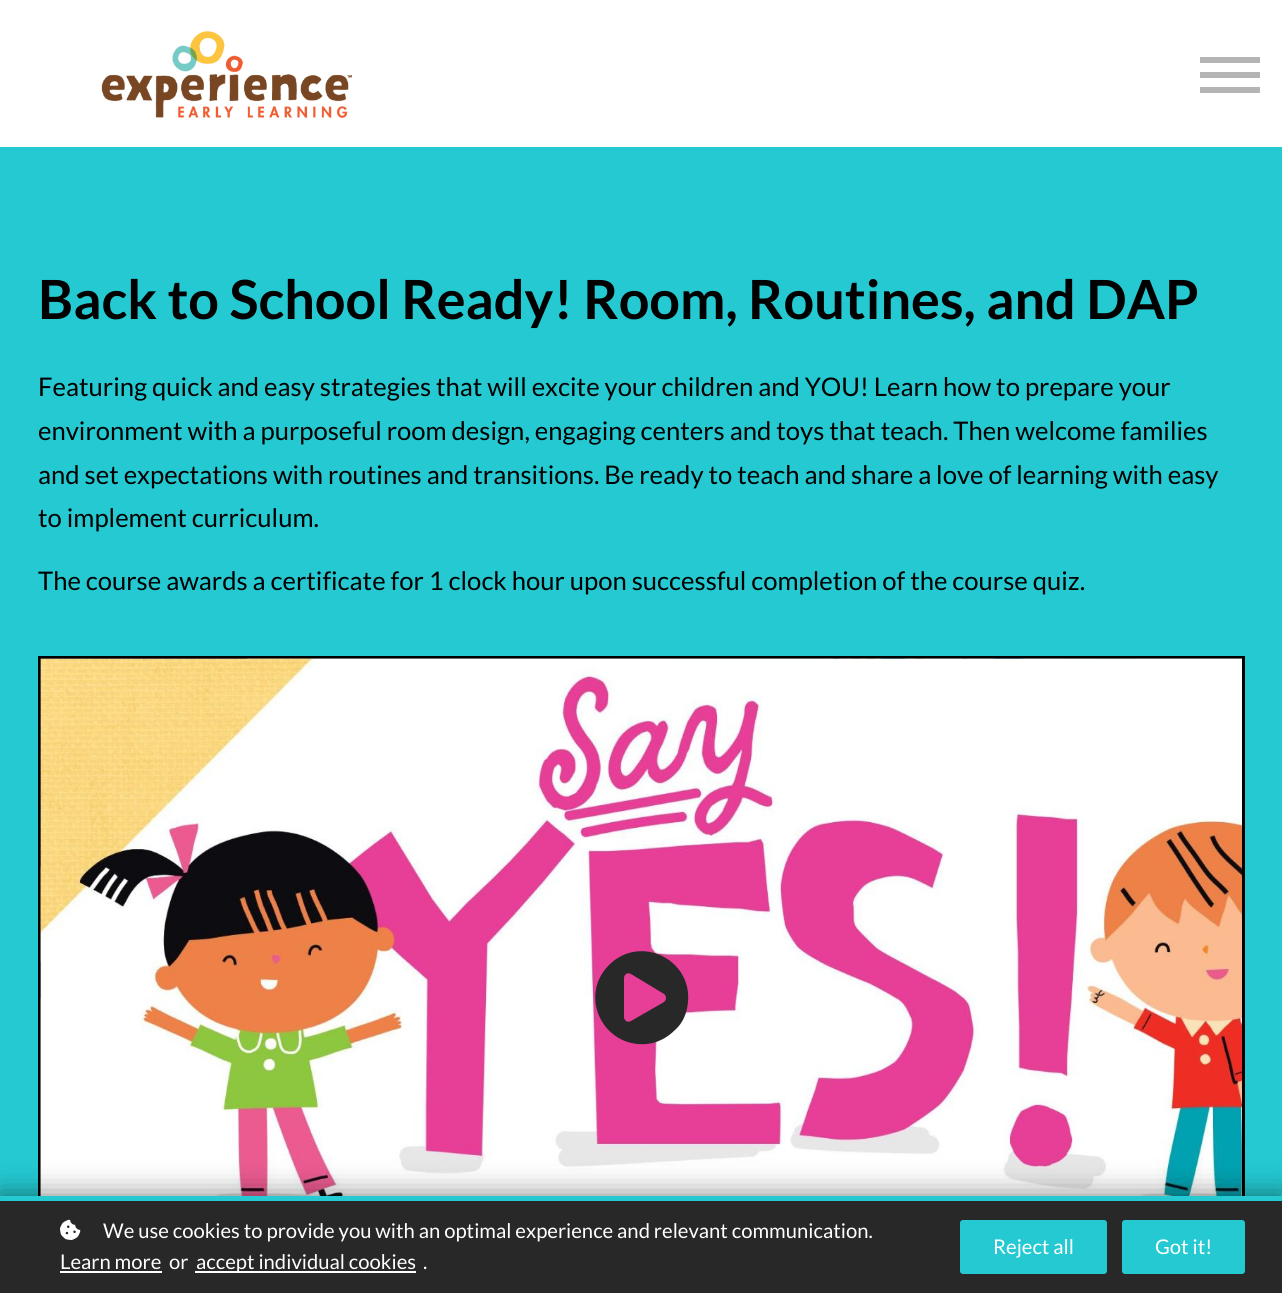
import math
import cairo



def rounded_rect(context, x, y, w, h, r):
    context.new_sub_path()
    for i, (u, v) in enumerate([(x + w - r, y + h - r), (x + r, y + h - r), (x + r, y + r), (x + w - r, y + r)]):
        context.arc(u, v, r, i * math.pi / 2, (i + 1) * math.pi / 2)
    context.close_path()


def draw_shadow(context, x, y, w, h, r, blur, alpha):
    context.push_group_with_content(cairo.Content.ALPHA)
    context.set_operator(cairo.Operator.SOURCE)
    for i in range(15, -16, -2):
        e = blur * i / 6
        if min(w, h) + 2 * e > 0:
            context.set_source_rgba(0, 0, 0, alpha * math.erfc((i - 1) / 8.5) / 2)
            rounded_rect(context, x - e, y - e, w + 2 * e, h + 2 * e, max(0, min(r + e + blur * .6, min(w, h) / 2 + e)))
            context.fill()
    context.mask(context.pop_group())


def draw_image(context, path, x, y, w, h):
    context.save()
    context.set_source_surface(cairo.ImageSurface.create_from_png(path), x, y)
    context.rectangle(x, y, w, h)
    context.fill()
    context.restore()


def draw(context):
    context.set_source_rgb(1, 1, 1)
    context.paint()
    draw_image(context, "images/1.png", 101, 31, 252, 87)
    context.set_source_rgb(180 / 255, 180 / 255, 180 / 255)
    context.rectangle(1200, 87, 60, 6)
    context.fill()
    context.rectangle(1200, 57, 60, 6)
    context.fill()
    context.rectangle(1200, 72, 60, 6)
    context.fill()
    context.set_source_rgb(36 / 255, 201 / 255, 210 / 255)
    context.rectangle(0, 147, 1282, 1049)
    context.fill()
    context.rectangle(39.5, 657.5, 1204, 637)
    context.set_source_rgb(0, 0, 0)
    context.set_line_width(3)
    context.stroke()
    draw_image(context, "images/2.png", 40, 658, 1202, 538)
    draw_image(context, "images/3.png", 40, 658, 1202, 538)
    context.set_source_rgb(40 / 255, 40 / 255, 40 / 255)
    context.new_path()
    context.move_to(609, 965)
    context.curve_to(640, 934, 692, 959, 688, 1002)
    context.curve_to(687, 1013, 683, 1023, 675, 1030)
    context.curve_to(667, 1038, 657, 1043, 647, 1044)
    context.curve_to(603, 1048, 578, 996, 609, 965)
    context.close_path()
    context.move_to(664, 1002)
    context.curve_to(665, 1001, 666, 1000, 666, 998)
    context.curve_to(666, 996, 665, 995, 664, 994)
    context.line_to(631, 974)
    context.curve_to(629, 973, 628, 973, 626, 974)
    context.curve_to(625, 975, 624, 976, 624, 978)
    context.line_to(624, 1017)
    context.curve_to(624, 1019, 625, 1020, 626, 1021)
    context.curve_to(628, 1022, 629, 1022, 631, 1021)
    context.close_path()
    context.fill()
    context.set_source_rgb(0, 0, 0)
    draw_shadow(context, 0, 1196, 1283, 97, 0, 15, 0.5)
    context.set_source_rgb(40 / 255, 40 / 255, 40 / 255)
    context.rectangle(0, 1201, 1282, 92)
    context.fill()
    context.set_source_rgb(36 / 255, 201 / 255, 210 / 255)
    context.rectangle(0, 1196, 1282, 5)
    context.fill()
    draw_image(context, "images/4.png", 60, 1219, 21, 21)
    context.set_source_rgb(1, 1, 1)
    context.rectangle(60, 1271, 102, 2)
    context.fill()
    context.rectangle(195, 1271, 221, 2)
    context.fill()
    context.set_source_rgb(36 / 255, 201 / 255, 210 / 255)
    rounded_rect(context, 960, 1220, 147, 54, 3)
    context.fill()
    rounded_rect(context, 1122, 1220, 123, 54, 3)
    context.fill()
    context.select_font_face("Lato", cairo.FontSlant.NORMAL, cairo.FontWeight.BOLD)
    context.set_font_size(54)
    context.set_source_rgb(0, 0, 0)
    context.move_to(38, 319)
    context.show_text("Back to School Ready! Room, Routines, and DAP")
    context.select_font_face("Lato")
    context.set_font_size(25.65)
    context.move_to(38, 396)
    context.show_text("Featuring quick and easy strategies that will excite your children and YOU! Learn how to prepare your")
    context.move_to(38, 440)
    context.show_text("environment with a purposeful room design, engaging centers and toys that teach. Then welcome families")
    context.move_to(38, 484)
    context.show_text("and set expectations with routines and transitions. Be ready to teach and share a love of learning with easy")
    context.move_to(38, 527)
    context.show_text("to implement curriculum.")
    context.move_to(38, 590)
    context.show_text("The course awards a certificate for 1 clock hour upon successful completion of the course quiz.")
    context.set_font_size(20.25)
    context.set_source_rgb(1, 1, 1)
    context.move_to(103, 1238)
    context.show_text("We use cookies to provide you with an optimal experience and relevant communication.")
    context.move_to(60, 1269)
    context.show_text("Learn more")
    context.move_to(169, 1269)
    context.show_text("or")
    context.move_to(196, 1269)
    context.show_text("accept individual cookies")
    context.move_to(423, 1269)
    context.show_text(".")
    context.move_to(993, 1254)
    context.show_text("Reject all")
    context.move_to(1155, 1254)
    context.show_text("Got it!")


surface = cairo.ImageSurface(cairo.Format.RGB24, 1282, 1293)
context = cairo.Context(surface)
options = cairo.FontOptions()
options.set_hint_metrics(cairo.HintMetrics.OFF)
options.set_hint_style(cairo.HintStyle.NONE)
context.set_font_options(options)
context.set_miter_limit(4)
draw(context)
surface.write_to_png("out.png")
